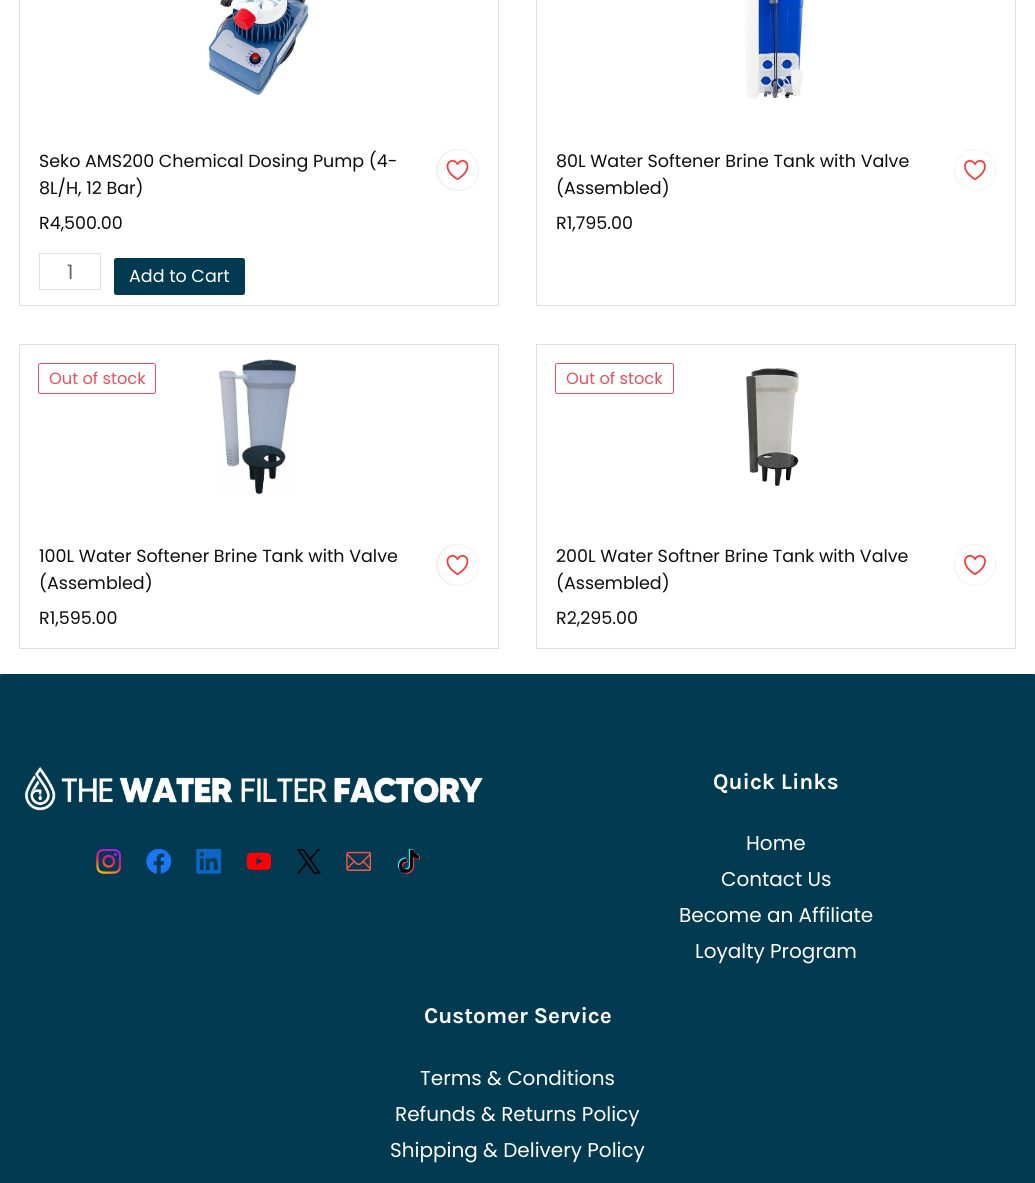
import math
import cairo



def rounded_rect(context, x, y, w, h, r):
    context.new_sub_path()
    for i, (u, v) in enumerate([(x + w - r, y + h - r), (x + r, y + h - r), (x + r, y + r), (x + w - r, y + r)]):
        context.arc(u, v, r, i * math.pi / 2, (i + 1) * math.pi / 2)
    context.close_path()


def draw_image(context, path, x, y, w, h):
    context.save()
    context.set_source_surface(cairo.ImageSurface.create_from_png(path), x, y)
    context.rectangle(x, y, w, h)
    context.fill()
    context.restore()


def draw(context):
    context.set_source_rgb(1, 1, 1)
    context.paint()
    context.rectangle(19.5, -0.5, 479, 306)
    context.set_source_rgb(224 / 255, 224 / 255, 224 / 255)
    context.set_line_width(1)
    context.stroke()
    draw_image(context, "images/1.png", 208, 0, 101, 95)
    context.set_source_rgb(239 / 255, 239 / 255, 239 / 255)
    rounded_rect(context, 436.5, 149.5, 42, 41, 20.5)
    context.fill_preserve()
    context.set_source_rgb(247 / 255, 239 / 255, 239 / 255)
    context.stroke()
    draw_image(context, "images/2.png", 438, 150, 40, 40)
    context.set_source_rgb(224 / 255, 224 / 255, 224 / 255)
    context.rectangle(39, 253, 62, 1)
    context.fill()
    context.rectangle(39, 289, 62, 1)
    context.fill()
    context.rectangle(100, 254, 1, 35)
    context.fill()
    context.rectangle(39, 254, 1, 35)
    context.fill()
    context.set_source_rgb(1 / 255, 58 / 255, 81 / 255)
    rounded_rect(context, 114, 258, 131, 37, 2.5)
    context.fill()
    context.rectangle(536.5, -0.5, 479, 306)
    context.set_source_rgb(224 / 255, 224 / 255, 224 / 255)
    context.stroke()
    draw_image(context, "images/3.png", 744, 0, 60, 99)
    context.arc(975, 170, 20.5, 0, 2 * math.pi)
    context.set_source_rgb(247 / 255, 239 / 255, 239 / 255)
    context.stroke()
    draw_image(context, "images/4.png", 955, 150, 40, 40)
    context.rectangle(19.5, 344.5, 479, 304)
    context.set_source_rgb(224 / 255, 224 / 255, 224 / 255)
    context.stroke()
    rounded_rect(context, 38.5, 363.5, 117, 30, 2)
    context.set_source_rgb(235 / 255, 77 / 255, 94 / 255)
    context.stroke()
    draw_image(context, "images/5.png", 219, 359, 78, 136)
    context.set_source_rgb(239 / 255, 239 / 255, 239 / 255)
    rounded_rect(context, 436.5, 544.5, 42, 41, 20.5)
    context.fill_preserve()
    context.set_source_rgb(247 / 255, 239 / 255, 239 / 255)
    context.stroke()
    draw_image(context, "images/2.png", 438, 545, 40, 40)
    context.rectangle(536.5, 344.5, 479, 304)
    context.set_source_rgb(224 / 255, 224 / 255, 224 / 255)
    context.stroke()
    rounded_rect(context, 555.5, 363.5, 118, 30, 2)
    context.set_source_rgb(235 / 255, 77 / 255, 94 / 255)
    context.stroke()
    draw_image(context, "images/6.png", 746, 368, 53, 118)
    context.arc(975, 565, 20.5, 0, 2 * math.pi)
    context.set_source_rgb(247 / 255, 239 / 255, 239 / 255)
    context.stroke()
    draw_image(context, "images/4.png", 955, 545, 40, 40)
    context.set_source_rgb(1 / 255, 58 / 255, 81 / 255)
    rounded_rect(context, 0, 674, 1035, 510, 1)
    context.fill()
    draw_image(context, "images/7.png", 24, 767, 459, 44)
    draw_image(context, "images/8.png", 96, 849, 25, 25)
    draw_image(context, "images/9.png", 146, 849, 25, 25)
    draw_image(context, "images/10.png", 196, 849, 25, 25)
    draw_image(context, "images/11.png", 246, 852, 25, 18)
    draw_image(context, "images/12.png", 296, 849, 25, 25)
    draw_image(context, "images/13.png", 346, 851, 25, 20)
    draw_image(context, "images/14.png", 397, 849, 23, 25)
    context.select_font_face("Poppins")
    context.set_font_size(17.5)
    context.set_source_rgb(14 / 255, 13 / 255, 13 / 255)
    context.move_to(39, 167)
    context.show_text("Seko AMS200 Chemical Dosing Pump (4-")
    context.move_to(39, 194)
    context.show_text("8L/H, 12 Bar)")
    context.move_to(39, 229)
    context.show_text("R4,500.00")
    context.set_font_size(20)
    context.set_source_rgb(104 / 255, 104 / 255, 104 / 255)
    context.move_to(67, 279)
    context.show_text("1")
    context.set_font_size(17.5)
    context.set_source_rgb(1, 1, 1)
    context.move_to(129, 282)
    context.show_text("Add to Cart")
    context.set_source_rgb(14 / 255, 13 / 255, 13 / 255)
    context.move_to(556, 167)
    context.show_text("80L Water Softener Brine Tank with Valve")
    context.move_to(556, 194)
    context.show_text("(Assembled)")
    context.move_to(556, 229)
    context.show_text("R1,795.00")
    context.set_font_size(16.25)
    context.set_source_rgb(235 / 255, 77 / 255, 94 / 255)
    context.move_to(49, 384)
    context.show_text("Out of stock")
    context.set_font_size(17.5)
    context.set_source_rgb(14 / 255, 13 / 255, 13 / 255)
    context.move_to(39, 562)
    context.show_text("100L Water Softener Brine Tank with Valve")
    context.move_to(39, 589)
    context.show_text("(Assembled)")
    context.move_to(39, 624)
    context.show_text("R1,595.00")
    context.set_font_size(16.25)
    context.set_source_rgb(235 / 255, 77 / 255, 94 / 255)
    context.move_to(566, 384)
    context.show_text("Out of stock")
    context.set_font_size(17.5)
    context.set_source_rgb(14 / 255, 13 / 255, 13 / 255)
    context.move_to(556, 562)
    context.show_text("200L Water Softner Brine Tank with Valve")
    context.move_to(556, 589)
    context.show_text("(Assembled)")
    context.move_to(556, 624)
    context.show_text("R2,295.00")
    context.select_font_face("Karla", cairo.FontSlant.NORMAL, cairo.FontWeight.BOLD)
    context.set_font_size(22.5)
    context.set_source_rgb(1, 1, 1)
    context.move_to(713, 789)
    context.show_text("Quick Links")
    context.select_font_face("Poppins")
    context.set_font_size(20)
    context.move_to(746, 850)
    context.show_text("Home")
    context.move_to(721, 886)
    context.show_text("Contact Us")
    context.move_to(679, 922)
    context.show_text("Become an Affiliate")
    context.move_to(695, 958)
    context.show_text("Loyalty Program")
    context.select_font_face("Karla", cairo.FontSlant.NORMAL, cairo.FontWeight.BOLD)
    context.set_font_size(22.5)
    context.move_to(424, 1023)
    context.show_text("Customer Service")
    context.select_font_face("Poppins")
    context.set_font_size(20)
    context.move_to(420, 1085)
    context.show_text("Terms & Conditions")
    context.move_to(395, 1121)
    context.show_text("Refunds & Returns Policy")
    context.move_to(390, 1157)
    context.show_text("Shipping & Delivery Policy")


surface = cairo.ImageSurface(cairo.Format.RGB24, 1035, 1183)
context = cairo.Context(surface)
options = cairo.FontOptions()
options.set_hint_metrics(cairo.HintMetrics.OFF)
options.set_hint_style(cairo.HintStyle.NONE)
context.set_font_options(options)
context.set_miter_limit(4)
draw(context)
surface.write_to_png("out.png")
